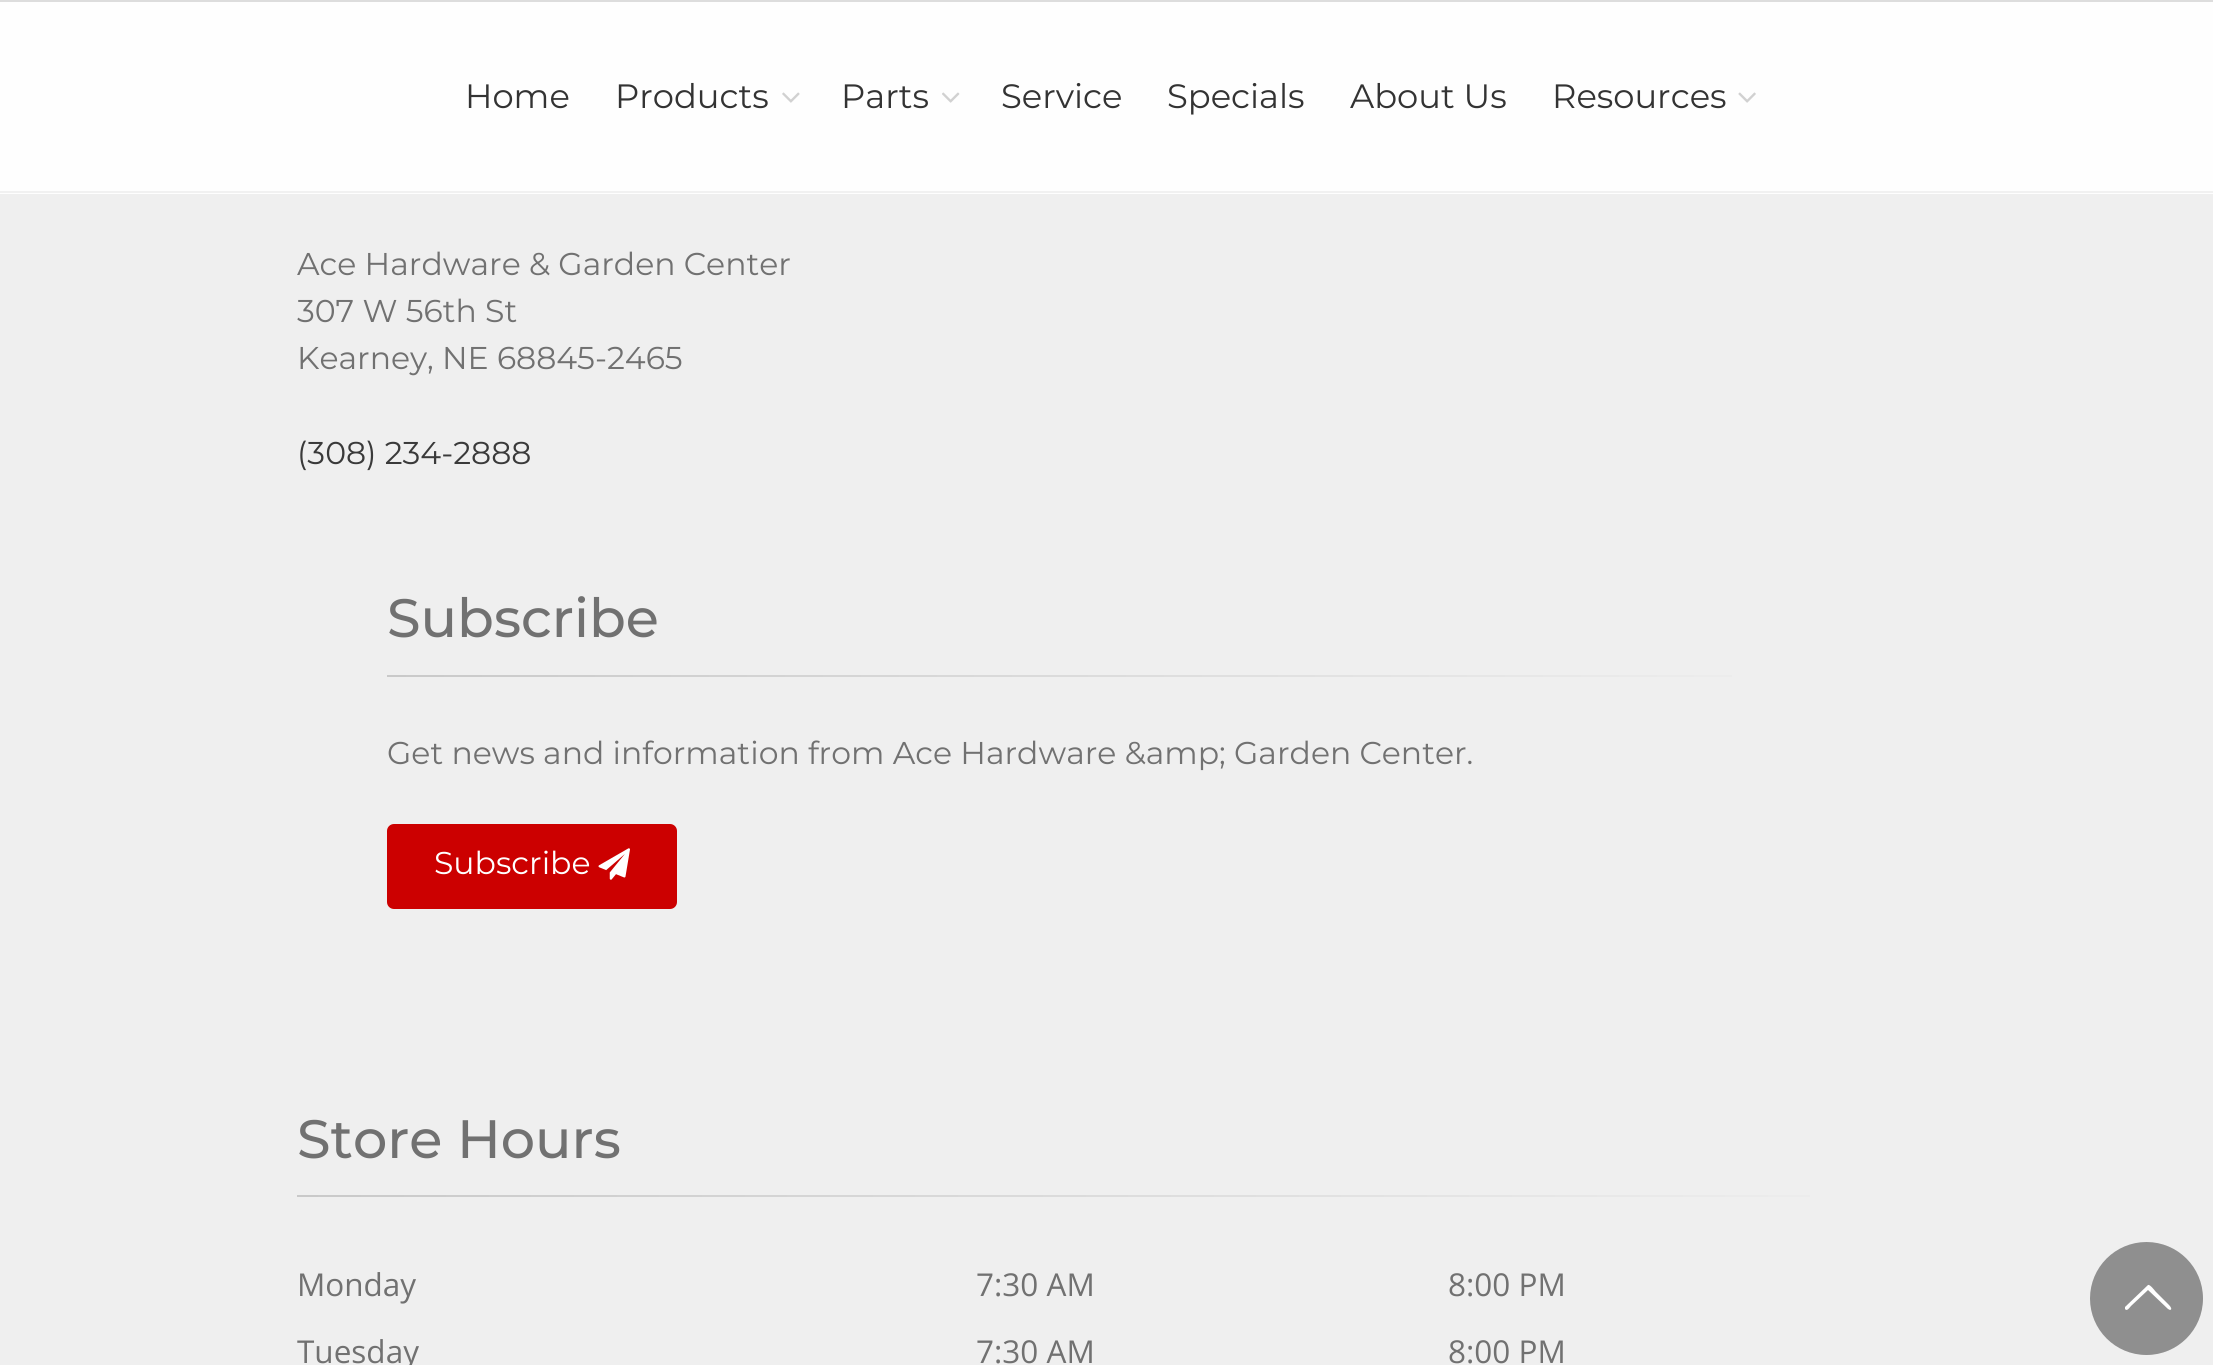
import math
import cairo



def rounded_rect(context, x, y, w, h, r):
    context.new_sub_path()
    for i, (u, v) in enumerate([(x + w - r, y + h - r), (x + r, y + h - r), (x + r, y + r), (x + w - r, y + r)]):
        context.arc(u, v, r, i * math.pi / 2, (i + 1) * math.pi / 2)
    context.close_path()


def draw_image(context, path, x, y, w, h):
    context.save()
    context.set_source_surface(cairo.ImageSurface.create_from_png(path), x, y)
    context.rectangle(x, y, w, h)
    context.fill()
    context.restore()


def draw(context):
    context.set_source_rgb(239 / 255, 239 / 255, 239 / 255)
    context.paint()
    context.set_source_rgb(221 / 255, 221 / 255, 221 / 255)
    context.rectangle(0, 0, 2213, 2)
    context.fill()
    context.set_source_rgb(254 / 255, 254 / 255, 254 / 255)
    context.rectangle(0, 2, 2213, 192)
    context.fill()
    context.set_source_rgb(241 / 255, 241 / 255, 241 / 255)
    context.rectangle(0, 191, 2213, 2)
    context.fill()
    draw_image(context, "images/1.png", 782, 92, 18, 11)
    draw_image(context, "images/2.png", 942, 92, 18, 11)
    draw_image(context, "images/3.png", 1738, 92, 18, 11)
    gradient = cairo.LinearGradient(387, 676, 1827, 676)
    gradient.add_color_stop_rgba(0, 201 / 255, 201 / 255, 201 / 255, 1)
    gradient.add_color_stop_rgba(1, 239 / 255, 239 / 255, 239 / 255, 1)
    context.set_source(gradient)
    context.rectangle(387, 675, 1345, 2)
    context.fill()
    context.set_source_rgb(204 / 255, 0, 0)
    rounded_rect(context, 388, 825, 288, 83, 6)
    context.fill_preserve()
    context.stroke()
    draw_image(context, "images/4.png", 598, 848, 32, 32)
    gradient = cairo.LinearGradient(297, 1196, 1917, 1196)
    gradient.add_color_stop_rgba(0, 201 / 255, 201 / 255, 201 / 255, 1)
    gradient.add_color_stop_rgba(1, 239 / 255, 239 / 255, 239 / 255, 1)
    context.set_source(gradient)
    context.rectangle(297, 1195, 1513, 2)
    context.fill()
    context.set_source_rgb(143 / 255, 143 / 255, 143 / 255)
    context.arc(2146.5, 1298.5, 56.5, 0, 2 * math.pi)
    context.fill()
    context.set_source_rgb(1, 1, 1)
    context.new_path()
    context.move_to(2168, 1309)
    context.line_to(2148, 1290)
    context.line_to(2131, 1306)
    context.curve_to(2130, 1307, 2127, 1312, 2125, 1309)
    context.line_to(2125, 1307)
    context.line_to(2148, 1285)
    context.curve_to(2150, 1284, 2155, 1291, 2156, 1292)
    context.line_to(2167, 1303)
    context.curve_to(2167, 1303, 2174, 1309, 2170, 1310)
    context.close_path()
    context.fill()
    context.select_font_face("Montserrat")
    context.set_font_size(33.75)
    context.set_source_rgb(51 / 255, 51 / 255, 51 / 255)
    context.move_to(465, 108)
    context.show_text("Home")
    context.move_to(615, 108)
    context.show_text("Products")
    context.move_to(841, 108)
    context.show_text("Parts")
    context.move_to(1001, 108)
    context.show_text("Service")
    context.move_to(1167, 108)
    context.show_text("Specials")
    context.move_to(1350, 108)
    context.show_text("About Us")
    context.move_to(1552, 108)
    context.show_text("Resources")
    context.set_font_size(31.5)
    context.set_source_rgb(113 / 255, 113 / 255, 113 / 255)
    context.move_to(297, 275)
    context.show_text("Ace Hardware & Garden Center")
    context.move_to(297, 322)
    context.show_text("307 W 56th St")
    context.move_to(297, 369)
    context.show_text("Kearney, NE 68845-2465")
    context.set_source_rgb(58 / 255, 58 / 255, 58 / 255)
    context.move_to(297, 464)
    context.show_text("(308) 234-2888")
    context.select_font_face("Montserrat Medium")
    context.set_font_size(54)
    context.set_source_rgb(113 / 255, 113 / 255, 113 / 255)
    context.move_to(387, 637)
    context.show_text("Subscribe")
    context.select_font_face("Montserrat")
    context.set_font_size(31.5)
    context.move_to(387, 764)
    context.show_text("Get news and information from Ace Hardware &amp; Garden Center.")
    context.set_source_rgb(1, 1, 1)
    context.move_to(434, 874)
    context.show_text("Subscribe")
    context.select_font_face("Montserrat Medium")
    context.set_font_size(54)
    context.set_source_rgb(113 / 255, 113 / 255, 113 / 255)
    context.move_to(297, 1158)
    context.show_text("Store Hours")
    context.select_font_face("Open Sans")
    context.set_font_size(31.5)
    context.move_to(297, 1296)
    context.show_text("Monday")
    context.move_to(976, 1296)
    context.show_text("7:30 AM")
    context.move_to(1448, 1296)
    context.show_text("8:00 PM")
    context.move_to(297, 1363)
    context.show_text("Tuesday")
    context.move_to(976, 1363)
    context.show_text("7:30 AM")
    context.move_to(1448, 1363)
    context.show_text("8:00 PM")


surface = cairo.ImageSurface(cairo.Format.RGB24, 2213, 1365)
context = cairo.Context(surface)
options = cairo.FontOptions()
options.set_hint_metrics(cairo.HintMetrics.OFF)
options.set_hint_style(cairo.HintStyle.NONE)
context.set_font_options(options)
context.set_miter_limit(4)
draw(context)
surface.write_to_png("out.png")
